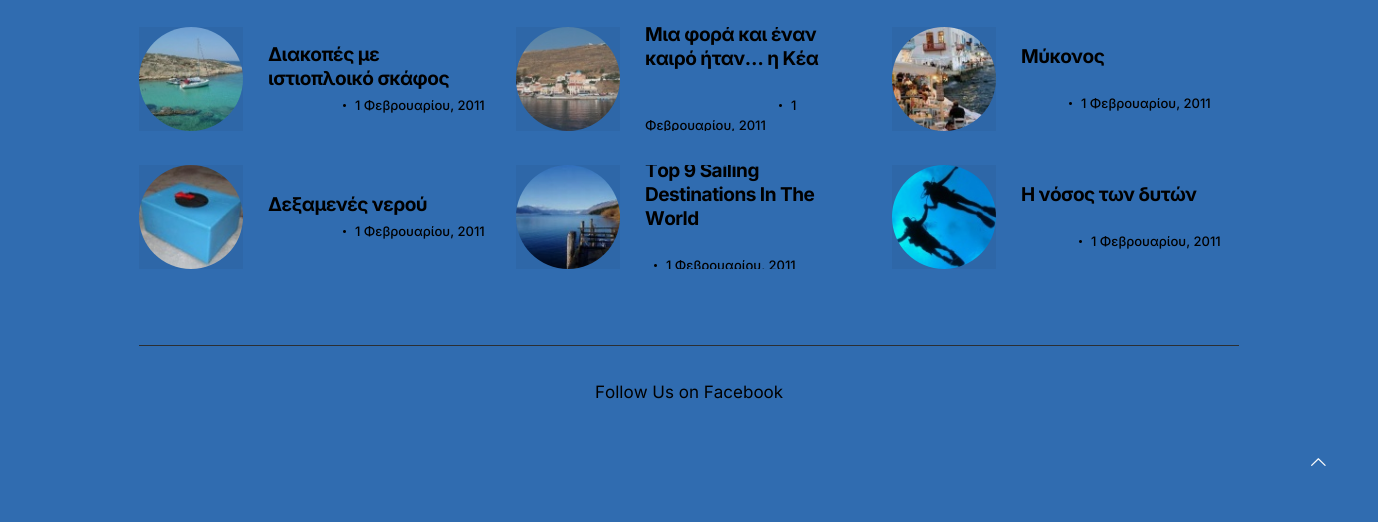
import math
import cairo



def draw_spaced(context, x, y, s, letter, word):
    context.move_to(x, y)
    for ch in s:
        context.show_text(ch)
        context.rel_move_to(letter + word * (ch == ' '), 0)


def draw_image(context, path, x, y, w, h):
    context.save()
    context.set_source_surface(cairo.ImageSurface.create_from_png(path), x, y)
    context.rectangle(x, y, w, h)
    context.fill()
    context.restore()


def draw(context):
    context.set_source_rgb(48 / 255, 108 / 255, 176 / 255)
    context.paint()
    draw_image(context, "images/1.png", 139, 27, 104, 104)
    context.set_source_rgba(0, 0, 0, 0.05)
    context.rectangle(139, 27, 104, 104)
    context.fill()
    context.set_source_rgb(0, 0, 0)
    context.arc(344.5, 105.5, 1.5, 0, 2 * math.pi)
    context.fill()
    draw_image(context, "images/2.png", 139, 165, 104, 104)
    context.set_source_rgba(0, 0, 0, 0.05)
    context.rectangle(139, 165, 104, 104)
    context.fill()
    context.set_source_rgb(0, 0, 0)
    context.arc(344.5, 231.5, 1.5, 0, 2 * math.pi)
    context.fill()
    draw_image(context, "images/3.png", 516, 27, 104, 104)
    context.set_source_rgba(0, 0, 0, 0.05)
    context.rectangle(516, 27, 104, 104)
    context.fill()
    context.set_source_rgb(0, 0, 0)
    context.arc(780.5, 105.5, 1.5, 0, 2 * math.pi)
    context.fill()
    draw_image(context, "images/4.png", 516, 165, 104, 104)
    context.set_source_rgba(0, 0, 0, 0.05)
    context.rectangle(516, 165, 104, 104)
    context.fill()
    context.set_source_rgb(0, 0, 0)
    context.arc(655.5, 265.5, 1.5, 0, 2 * math.pi)
    context.fill()
    draw_image(context, "images/5.png", 892, 27, 104, 104)
    context.set_source_rgba(0, 0, 0, 0.05)
    context.rectangle(892, 27, 104, 104)
    context.fill()
    context.set_source_rgb(0, 0, 0)
    context.arc(1070.5, 103.5, 1.5, 0, 2 * math.pi)
    context.fill()
    draw_image(context, "images/6.png", 892, 165, 104, 104)
    context.set_source_rgba(0, 0, 0, 0.05)
    context.rectangle(892, 165, 104, 104)
    context.fill()
    context.set_source_rgb(0, 0, 0)
    context.arc(1080.5, 241.5, 1.5, 0, 2 * math.pi)
    context.fill()
    context.set_source_rgb(43 / 255, 47 / 255, 51 / 255)
    context.rectangle(139, 345, 1100, 1)
    context.fill()
    draw_image(context, "images/7.png", 1311, 458, 15, 8)
    context.select_font_face("Inter", cairo.FontSlant.NORMAL, cairo.FontWeight.BOLD)
    context.set_font_size(19)
    context.set_source_rgb(0, 0, 0)
    draw_spaced(context, 268, 61, "Διακοπές με", -0.5, 0)
    draw_spaced(context, 268, 85, "ιστιοπλοικό σκάφος", -0.5, 0)
    context.select_font_face("Inter Medium")
    context.set_font_size(13)
    context.move_to(355, 110)
    context.show_text("1 Φεβρουαρίου, 2011")
    context.select_font_face("Inter", cairo.FontSlant.NORMAL, cairo.FontWeight.BOLD)
    context.set_font_size(19)
    draw_spaced(context, 268, 211, "Δεξαμενές νερού", -0.5, 0)
    context.select_font_face("Inter Medium")
    context.set_font_size(13)
    context.move_to(355, 236)
    context.show_text("1 Φεβρουαρίου, 2011")
    context.save()
    context.rectangle(516, 27, 346, 104)
    context.clip()
    context.select_font_face("Inter", cairo.FontSlant.NORMAL, cairo.FontWeight.BOLD)
    context.set_font_size(19)
    draw_spaced(context, 645, 41, "Μια φορά και έναν", -0.5, 0)
    context.restore()
    context.select_font_face("Inter", cairo.FontSlant.NORMAL, cairo.FontWeight.BOLD)
    context.set_font_size(19)
    draw_spaced(context, 645, 65, "καιρό ήταν… η Κέα", -0.5, 0)
    context.select_font_face("Inter Medium")
    context.set_font_size(13)
    context.move_to(791, 110)
    context.show_text("1")
    context.save()
    context.rectangle(516, 27, 346, 104)
    context.clip()
    context.move_to(645, 130)
    context.show_text("Φεβρουαρίου, 2011")
    context.restore()
    context.save()
    context.rectangle(516, 165, 346, 104)
    context.clip()
    context.select_font_face("Inter", cairo.FontSlant.NORMAL, cairo.FontWeight.BOLD)
    context.set_font_size(19)
    draw_spaced(context, 645, 177, "Top 9 Sailing", -0.5, 0)
    context.restore()
    context.select_font_face("Inter", cairo.FontSlant.NORMAL, cairo.FontWeight.BOLD)
    context.set_font_size(19)
    draw_spaced(context, 645, 201, "Destinations In The", -0.5, 0)
    draw_spaced(context, 645, 225, "World", -0.5, 0)
    context.save()
    context.rectangle(516, 165, 346, 104)
    context.clip()
    context.select_font_face("Inter Medium")
    context.set_font_size(13)
    context.move_to(666, 270)
    context.show_text("1 Φεβρουαρίου, 2011")
    context.restore()
    draw_spaced(context, 1021, 63, "Μύκονος", -0.5, 0)
    context.select_font_face("Inter Medium")
    context.set_font_size(13)
    context.move_to(1081, 108)
    context.show_text("1 Φεβρουαρίου, 2011")
    context.select_font_face("Inter", cairo.FontSlant.NORMAL, cairo.FontWeight.BOLD)
    context.set_font_size(19)
    draw_spaced(context, 1021, 201, "Η νόσος των δυτών", -0.5, 0)
    context.select_font_face("Inter Medium")
    context.set_font_size(13)
    context.move_to(1091, 246)
    context.show_text("1 Φεβρουαρίου, 2011")
    context.select_font_face("Inter")
    context.set_font_size(17)
    context.move_to(595, 398)
    context.show_text("Follow Us on Facebook")


surface = cairo.ImageSurface(cairo.Format.RGB24, 1378, 522)
context = cairo.Context(surface)
options = cairo.FontOptions()
options.set_hint_metrics(cairo.HintMetrics.OFF)
options.set_hint_style(cairo.HintStyle.NONE)
context.set_font_options(options)
context.set_miter_limit(4)
draw(context)
surface.write_to_png("out.png")
